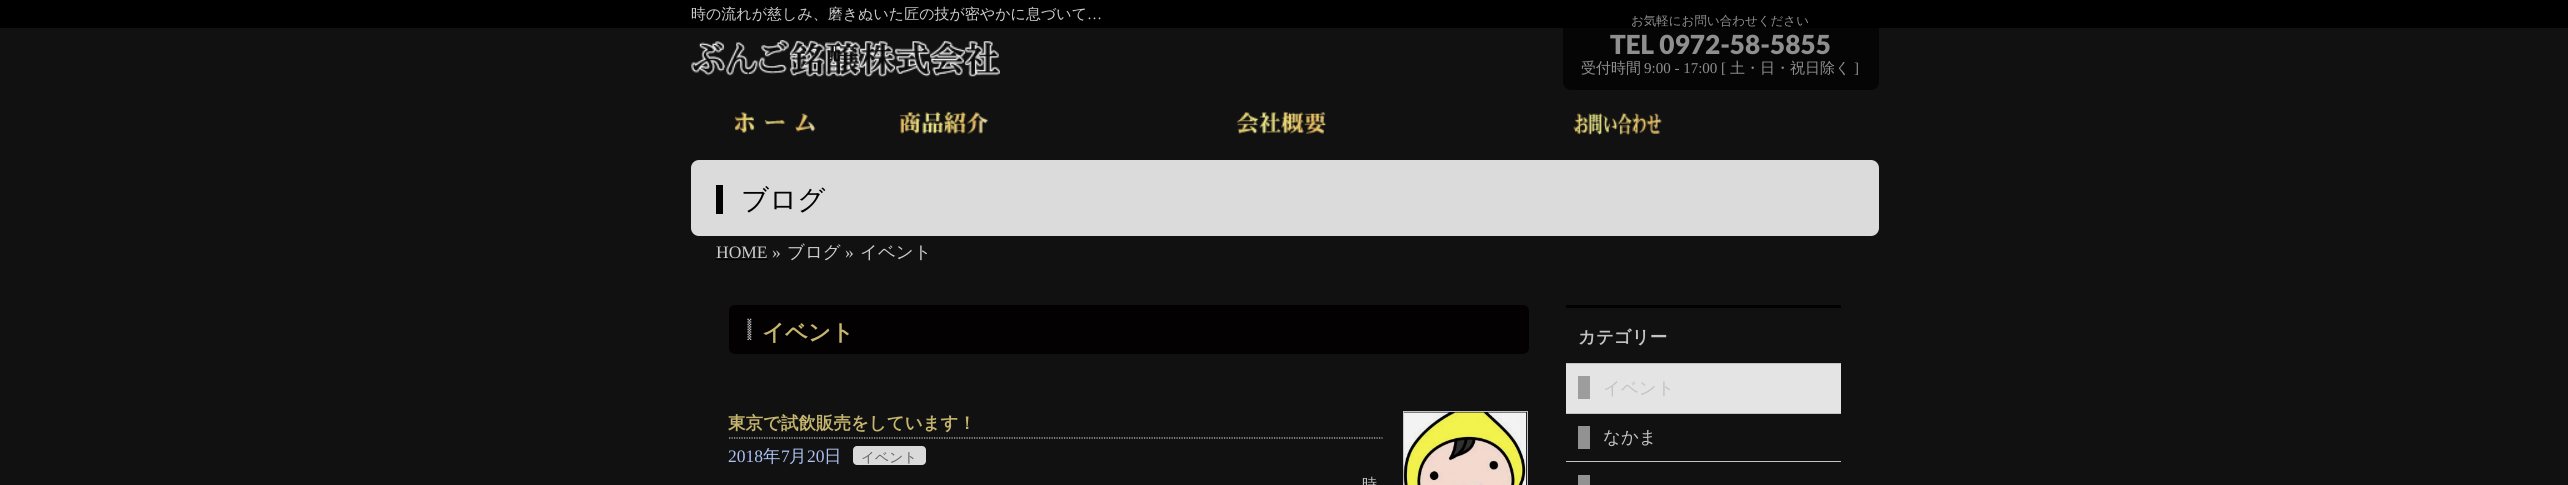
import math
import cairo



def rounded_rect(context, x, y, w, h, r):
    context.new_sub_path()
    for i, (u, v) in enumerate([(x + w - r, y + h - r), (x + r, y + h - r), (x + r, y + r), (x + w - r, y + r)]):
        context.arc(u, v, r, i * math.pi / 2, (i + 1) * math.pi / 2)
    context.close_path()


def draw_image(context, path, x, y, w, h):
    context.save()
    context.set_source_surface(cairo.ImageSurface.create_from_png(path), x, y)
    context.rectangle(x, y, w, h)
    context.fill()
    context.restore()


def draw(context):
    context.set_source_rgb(17 / 255, 17 / 255, 17 / 255)
    context.paint()
    context.set_source_rgb(0, 0, 0)
    context.rectangle(0, 0, 2568, 28)
    context.fill()
    draw_image(context, "images/1.png", 691, 40, 309, 37)
    context.set_source_rgba(0, 0, 0, 0.7)
    context.new_path()
    context.move_to(1563, 0)
    context.line_to(1879, 0)
    context.line_to(1879, 82)
    context.curve_to(1879, 86.5, 1875.5, 90, 1871, 90)
    context.line_to(1571, 90)
    context.curve_to(1566.5, 90, 1563, 86.5, 1563, 82)
    context.close_path()
    context.fill()
    draw_image(context, "images/2.png", 734, 112, 82, 21)
    draw_image(context, "images/3.png", 899, 111, 90, 23)
    draw_image(context, "images/4.png", 1236, 111, 91, 23)
    draw_image(context, "images/5.png", 1573, 112, 89, 23)
    context.set_source_rgb(219 / 255, 219 / 255, 219 / 255)
    rounded_rect(context, 691, 160, 1188, 76, 8)
    context.fill()
    context.set_source_rgb(4 / 255, 3 / 255, 3 / 255)
    context.rectangle(716, 185, 7, 29)
    context.fill()
    context.set_source_rgb(2 / 255, 0, 0)
    context.rectangle(716, 259, 52, 1)
    context.fill()
    context.set_source_rgb(3 / 255, 1 / 255, 1 / 255)
    rounded_rect(context, 729, 305, 800, 49, 6)
    context.fill()
    draw_image(context, "images/6.png", 747, 318, 5, 22)
    context.new_path()
    context.move_to(729, 438)
    context.line_to(1382.5, 438)
    context.set_source_rgb(195 / 255, 195 / 255, 195 / 255)
    context.set_line_width(1.2)
    context.set_dash([1.25, 1.25])
    context.stroke()
    context.set_source_rgb(218 / 255, 218 / 255, 218 / 255)
    rounded_rect(context, 853, 446, 73, 19, 4)
    context.fill()
    context.rectangle(1403.5, 411.5, 124, 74)
    context.set_source_rgb(195 / 255, 195 / 255, 195 / 255)
    context.set_line_width(1)
    context.set_dash([])
    context.stroke()
    draw_image(context, "images/7.png", 1403, 412, 124, 73)
    context.set_source_rgb(3 / 255, 1 / 255, 1 / 255)
    context.rectangle(1566, 305, 275, 3)
    context.fill()
    context.set_source_rgb(195 / 255, 195 / 255, 195 / 255)
    context.rectangle(1566, 363, 275, 1)
    context.fill()
    context.rectangle(1566, 413, 275, 1)
    context.fill()
    context.set_source_rgb(228 / 255, 228 / 255, 228 / 255)
    context.rectangle(1566, 364, 275, 49)
    context.fill()
    context.set_source_rgb(157 / 255, 157 / 255, 157 / 255)
    context.rectangle(1578, 376, 12, 23)
    context.fill()
    context.set_source_rgb(195 / 255, 195 / 255, 195 / 255)
    context.rectangle(1566, 461, 275, 1)
    context.fill()
    context.set_source_rgb(146 / 255, 146 / 255, 146 / 255)
    context.rectangle(1578, 426, 12, 23)
    context.fill()
    context.rectangle(1578, 475, 12, 10)
    context.fill()
    context.select_font_face("WenQuanYi Zen Hei Medium")
    context.set_font_size(15)
    context.set_source_rgb(204 / 255, 204 / 255, 204 / 255)
    context.move_to(691, 19)
    context.show_text("時の流れが慈しみ、磨きぬいた匠の技が密やかに息づいて")
    context.select_font_face("Liberation Serif")
    context.move_to(1087, 19)
    context.show_text("…")
    context.select_font_face("WenQuanYi Zen Hei Medium")
    context.set_font_size(12.5)
    context.set_source_rgb(143 / 255, 143 / 255, 143 / 255)
    context.move_to(1631, 25)
    context.show_text("お気軽にお問い合わせください")
    context.select_font_face("Lato Black")
    context.set_font_size(26.25)
    context.move_to(1610, 54)
    context.show_text("TEL 0972-58-5855")
    context.select_font_face("WenQuanYi Zen Hei Medium")
    context.set_font_size(15)
    context.move_to(1581, 73)
    context.show_text("受付時間")
    context.select_font_face("Liberation Serif")
    context.move_to(1644, 73)
    context.show_text("9:00 - 17:00 [")
    context.select_font_face("WenQuanYi Zen Hei Medium")
    context.move_to(1730, 73)
    context.show_text("土・日・祝日除く")
    context.select_font_face("Liberation Serif")
    context.move_to(1854, 73)
    context.show_text("]")
    context.select_font_face("WenQuanYi Zen Hei Medium")
    context.set_font_size(27.5)
    context.set_source_rgb(3 / 255, 3 / 255, 3 / 255)
    context.move_to(741, 209)
    context.show_text("ブログ")
    context.select_font_face("Liberation Serif")
    context.set_font_size(17.5)
    context.set_source_rgb(204 / 255, 204 / 255, 204 / 255)
    context.move_to(716, 258)
    context.show_text("HOME »")
    context.select_font_face("WenQuanYi Zen Hei Medium")
    context.move_to(787, 258)
    context.show_text("ブログ")
    context.select_font_face("Liberation Serif")
    context.move_to(845, 258)
    context.show_text("»")
    context.select_font_face("WenQuanYi Zen Hei Medium")
    context.move_to(860, 258)
    context.show_text("イベント")
    context.select_font_face("WenQuanYi Zen Hei", cairo.FontSlant.NORMAL, cairo.FontWeight.BOLD)
    context.set_font_size(22.5)
    context.set_source_rgb(198 / 255, 182 / 255, 109 / 255)
    context.move_to(762, 340)
    context.show_text("イベント")
    context.set_font_size(17.5)
    context.move_to(728, 429)
    context.show_text("東京で試飲販売をしています！")
    context.select_font_face("Liberation Serif")
    context.set_source_rgb(171 / 255, 194 / 255, 243 / 255)
    context.move_to(728, 462)
    context.show_text("2018")
    context.select_font_face("WenQuanYi Zen Hei Medium")
    context.move_to(763, 462)
    context.show_text("年")
    context.select_font_face("Liberation Serif")
    context.move_to(781, 462)
    context.show_text("7")
    context.select_font_face("WenQuanYi Zen Hei Medium")
    context.move_to(789, 462)
    context.show_text("月")
    context.select_font_face("Liberation Serif")
    context.move_to(807, 462)
    context.show_text("20")
    context.select_font_face("WenQuanYi Zen Hei Medium")
    context.move_to(824, 462)
    context.show_text("日")
    context.set_font_size(13.75)
    context.set_source_rgb(98 / 255, 98 / 255, 98 / 255)
    context.move_to(861, 462)
    context.show_text("イベント")
    context.set_font_size(15)
    context.set_source_rgb(195 / 255, 195 / 255, 195 / 255)
    context.move_to(1362, 489)
    context.show_text("時")
    context.select_font_face("WenQuanYi Zen Hei", cairo.FontSlant.NORMAL, cairo.FontWeight.BOLD)
    context.set_font_size(17.5)
    context.move_to(1578, 343)
    context.show_text("カテゴリー")
    context.select_font_face("WenQuanYi Zen Hei Medium")
    context.move_to(1603, 394)
    context.show_text("イベント")
    context.move_to(1603, 443)
    context.show_text("なかま")


surface = cairo.ImageSurface(cairo.Format.RGB24, 2568, 485)
context = cairo.Context(surface)
options = cairo.FontOptions()
options.set_hint_metrics(cairo.HintMetrics.OFF)
options.set_hint_style(cairo.HintStyle.NONE)
context.set_font_options(options)
context.set_miter_limit(4)
draw(context)
surface.write_to_png("out.png")
